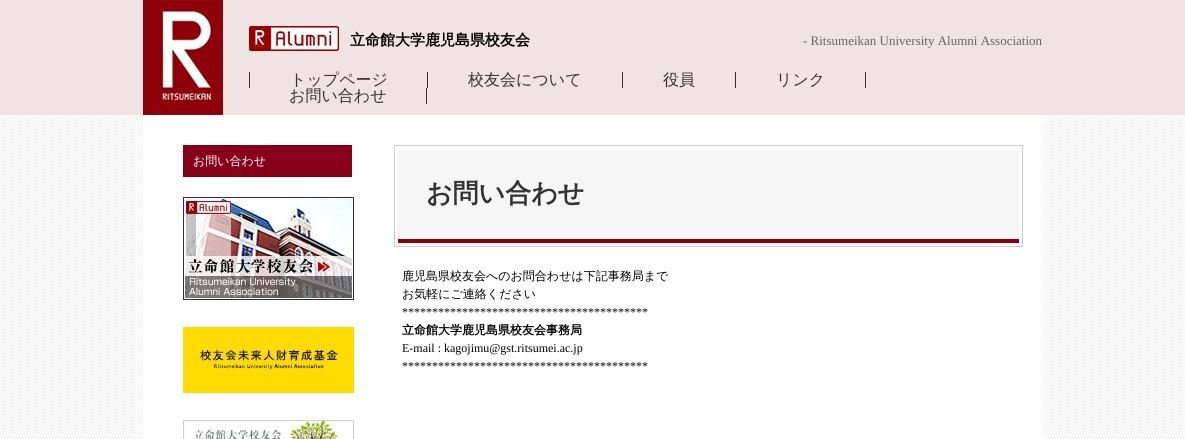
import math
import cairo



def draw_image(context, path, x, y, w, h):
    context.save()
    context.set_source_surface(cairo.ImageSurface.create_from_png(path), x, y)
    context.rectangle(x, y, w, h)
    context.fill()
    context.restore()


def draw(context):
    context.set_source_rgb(1, 1, 1)
    context.paint()
    draw_image(context, "images/1.png", 0, 115, 1185, 324)
    context.set_source_rgb(239 / 255, 227 / 255, 228 / 255)
    context.rectangle(0, 0, 1185, 115)
    context.fill()
    draw_image(context, "images/2.png", 143, 0, 80, 115)
    draw_image(context, "images/3.png", 249, 26, 90, 25)
    context.set_source_rgb(51 / 255, 51 / 255, 51 / 255)
    context.rectangle(427, 72, 1, 16)
    context.fill()
    context.rectangle(249, 72, 1, 16)
    context.fill()
    context.rectangle(622, 72, 1, 16)
    context.fill()
    context.rectangle(735, 72, 1, 16)
    context.fill()
    context.rectangle(865, 72, 1, 16)
    context.fill()
    context.rectangle(426, 88, 1, 16)
    context.fill()
    context.set_source_rgb(1, 1, 1)
    context.rectangle(143, 115, 900, 324)
    context.fill()
    context.set_source_rgb(134 / 255, 0, 26 / 255)
    context.rectangle(183, 145, 169, 32)
    context.fill()
    draw_image(context, "images/4.png", 183, 197, 171, 103)
    draw_image(context, "images/5.png", 183, 327, 171, 66)
    draw_image(context, "images/6.png", 183, 420, 171, 19)
    context.rectangle(394.5, 145.5, 628, 101)
    context.set_source_rgb(204 / 255, 204 / 255, 204 / 255)
    context.set_line_width(1)
    context.stroke()
    context.set_source_rgb(246 / 255, 246 / 255, 246 / 255)
    context.rectangle(398, 149, 621, 90)
    context.fill()
    context.set_source_rgb(142 / 255, 1 / 255, 10 / 255)
    context.rectangle(398, 239, 621, 4)
    context.fill()
    context.select_font_face("WenQuanYi Zen Hei", cairo.FontSlant.NORMAL, cairo.FontWeight.BOLD)
    context.set_font_size(15)
    context.set_source_rgb(0, 0, 0)
    context.move_to(350, 45)
    context.show_text("立命館大学鹿児島県校友会")
    context.select_font_face("Liberation Serif")
    context.set_font_size(13)
    context.set_source_rgb(102 / 255, 102 / 255, 102 / 255)
    context.move_to(803, 45)
    context.show_text("- Ritsumeikan University Alumni Association")
    context.select_font_face("WenQuanYi Zen Hei Medium")
    context.set_font_size(16)
    context.set_source_rgb(51 / 255, 51 / 255, 51 / 255)
    context.move_to(290, 85)
    context.show_text("トップページ")
    context.move_to(468, 85)
    context.show_text("校友会について")
    context.move_to(663, 85)
    context.show_text("役員")
    context.move_to(776, 85)
    context.show_text("リンク")
    context.move_to(289, 101)
    context.show_text("お問い合わせ")
    context.set_font_size(12)
    context.set_source_rgb(1, 1, 1)
    context.move_to(193, 165)
    context.show_text("お問い合わせ")
    context.select_font_face("WenQuanYi Zen Hei", cairo.FontSlant.NORMAL, cairo.FontWeight.BOLD)
    context.set_font_size(26)
    context.set_source_rgb(51 / 255, 51 / 255, 51 / 255)
    context.move_to(426, 202)
    context.show_text("お問い合わせ")
    context.select_font_face("WenQuanYi Zen Hei Medium")
    context.set_font_size(12)
    context.set_source_rgb(0, 0, 0)
    context.move_to(402, 280)
    context.show_text("鹿児島県校友会へのお問合わせは下記事務局まで")
    context.move_to(402, 298)
    context.show_text("お気軽にご連絡ください")
    context.select_font_face("Liberation Serif")
    context.move_to(402, 316)
    context.show_text("*****************************************")
    context.select_font_face("WenQuanYi Zen Hei", cairo.FontSlant.NORMAL, cairo.FontWeight.BOLD)
    context.move_to(402, 334)
    context.show_text("立命館大学鹿児島県校友会事務局")
    context.select_font_face("Liberation Serif")
    context.move_to(402, 352)
    context.show_text("E-mail : kagojimu@gst.ritsumei.ac.jp")
    context.move_to(402, 370)
    context.show_text("*****************************************")


surface = cairo.ImageSurface(cairo.Format.RGB24, 1185, 439)
context = cairo.Context(surface)
options = cairo.FontOptions()
options.set_hint_metrics(cairo.HintMetrics.OFF)
options.set_hint_style(cairo.HintStyle.NONE)
context.set_font_options(options)
context.set_miter_limit(4)
draw(context)
surface.write_to_png("out.png")
